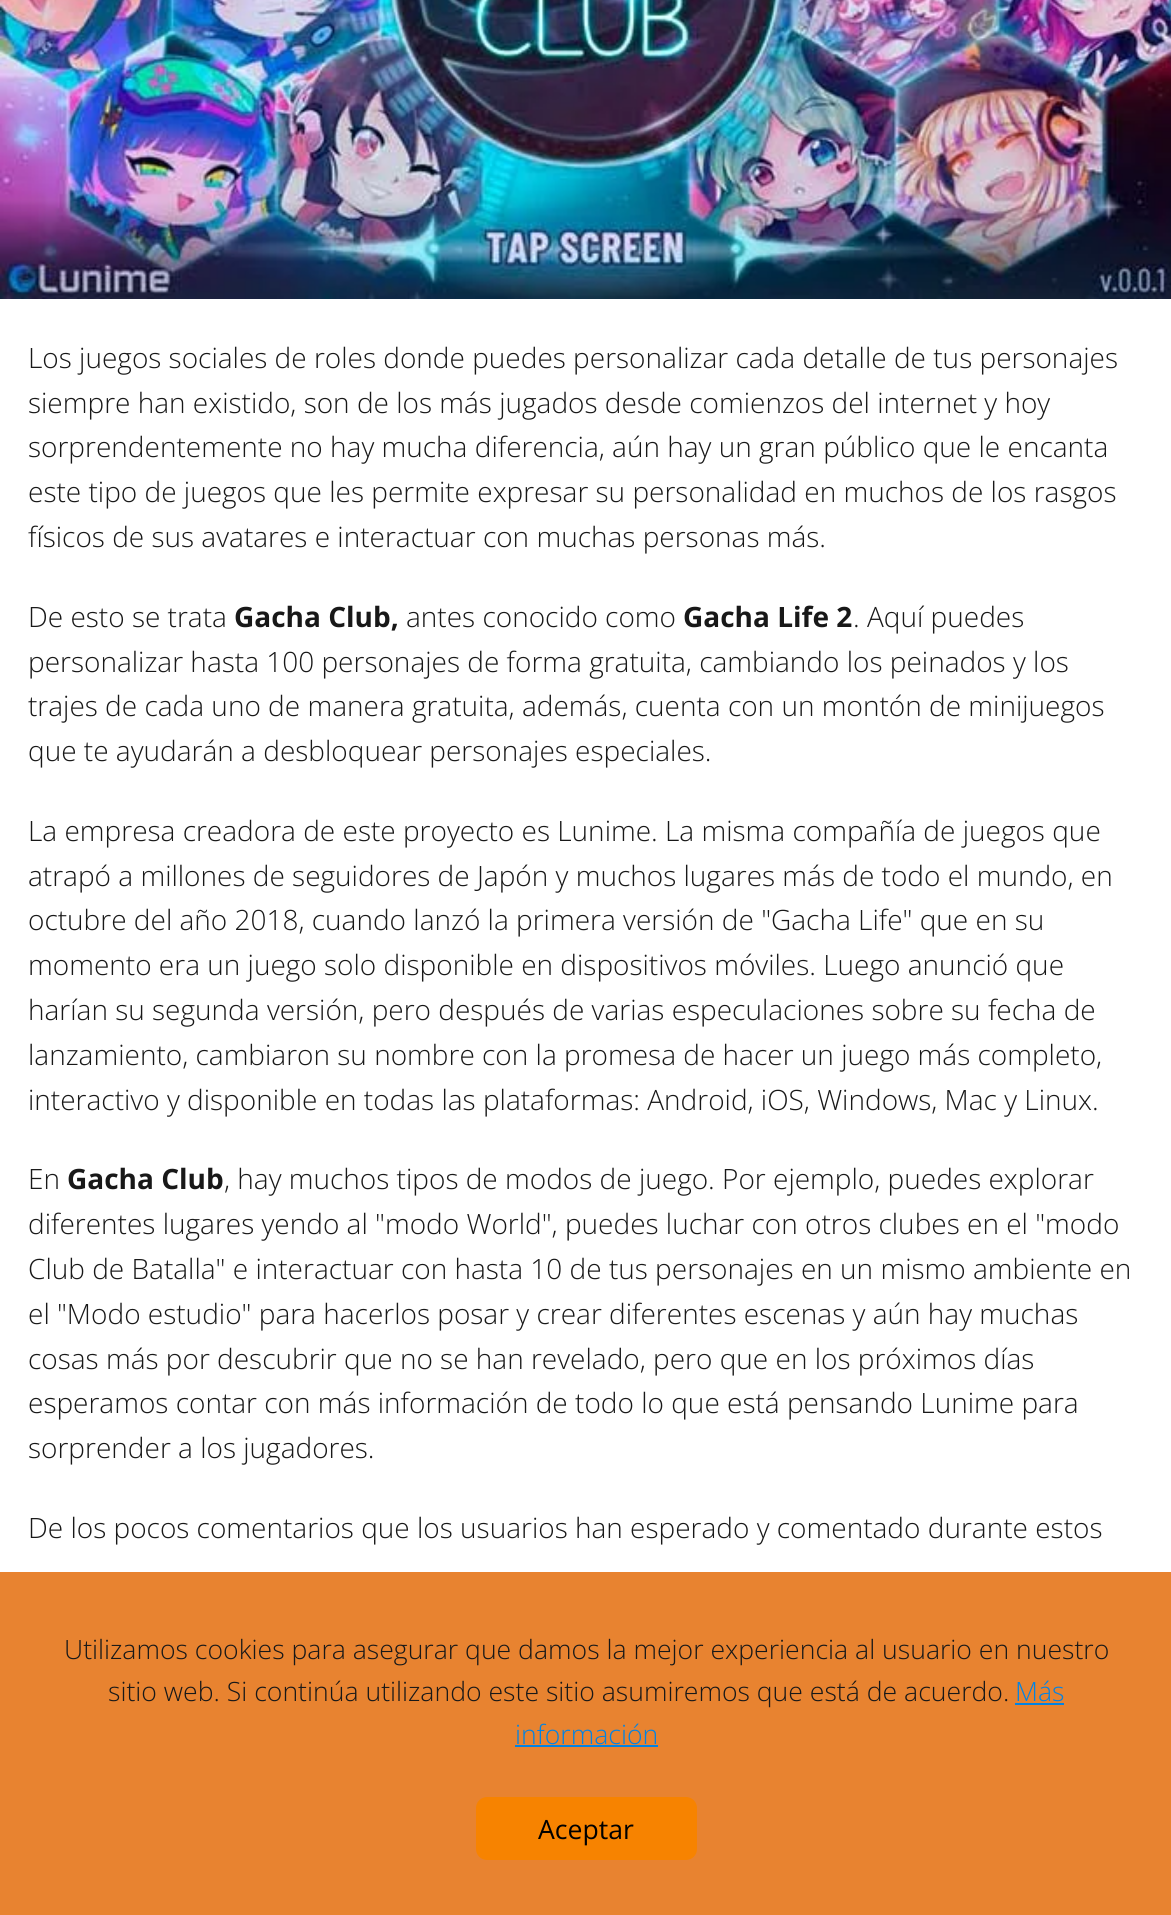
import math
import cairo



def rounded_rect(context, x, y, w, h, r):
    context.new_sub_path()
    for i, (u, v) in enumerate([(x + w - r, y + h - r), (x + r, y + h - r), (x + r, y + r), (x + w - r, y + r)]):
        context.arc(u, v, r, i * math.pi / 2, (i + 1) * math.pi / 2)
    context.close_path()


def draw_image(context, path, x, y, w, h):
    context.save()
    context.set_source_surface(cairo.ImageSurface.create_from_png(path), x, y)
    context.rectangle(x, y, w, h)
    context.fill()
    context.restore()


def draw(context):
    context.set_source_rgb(1, 1, 1)
    context.paint()
    draw_image(context, "images/1.png", 0, 0, 1171, 299)
    context.set_source_rgb(232 / 255, 131 / 255, 48 / 255)
    context.rectangle(0, 1572, 1171, 343)
    context.fill()
    context.set_source_rgb(1 / 255, 131 / 255, 228 / 255)
    context.rectangle(1015, 1703, 49, 2)
    context.fill()
    context.rectangle(515, 1745, 143, 2)
    context.fill()
    context.set_source_rgb(247 / 255, 131 / 255, 0)
    rounded_rect(context, 476, 1797, 221, 63, 11)
    context.fill()
    context.select_font_face("Open Sans Light")
    context.set_font_size(28)
    context.set_source_rgb(24 / 255, 24 / 255, 24 / 255)
    context.move_to(28, 368)
    context.show_text("Los juegos sociales de roles donde puedes personalizar cada detalle de tus personajes")
    context.move_to(28, 413)
    context.show_text("siempre han existido, son de los más jugados desde comienzos del internet y hoy")
    context.move_to(28, 457)
    context.show_text("sorprendentemente no hay mucha diferencia, aún hay un gran público que le encanta")
    context.move_to(28, 502)
    context.show_text("este tipo de juegos que les permite expresar su personalidad en muchos de los rasgos")
    context.move_to(28, 547)
    context.show_text("físicos de sus avatares e interactuar con muchas personas más.")
    context.move_to(28, 627)
    context.show_text("De esto se trata")
    context.select_font_face("Open Sans", cairo.FontSlant.NORMAL, cairo.FontWeight.BOLD)
    context.move_to(234, 627)
    context.show_text("Gacha Club,")
    context.select_font_face("Open Sans Light")
    context.move_to(406, 627)
    context.show_text("antes conocido como")
    context.select_font_face("Open Sans", cairo.FontSlant.NORMAL, cairo.FontWeight.BOLD)
    context.move_to(683, 627)
    context.show_text("Gacha Life 2")
    context.select_font_face("Open Sans Light")
    context.move_to(853, 627)
    context.show_text(". Aquí puedes")
    context.move_to(28, 672)
    context.show_text("personalizar hasta 100 personajes de forma gratuita, cambiando los peinados y los")
    context.move_to(28, 716)
    context.show_text("trajes de cada uno de manera gratuita, además, cuenta con un montón de minijuegos")
    context.move_to(28, 761)
    context.show_text("que te ayudarán a desbloquear personajes especiales.")
    context.move_to(28, 841)
    context.show_text("La empresa creadora de este proyecto es Lunime. La misma compañía de juegos que")
    context.move_to(28, 886)
    context.show_text("atrapó a millones de seguidores de Japón y muchos lugares más de todo el mundo, en")
    context.move_to(28, 930)
    context.show_text("octubre del año 2018, cuando lanzó la primera versión de \"Gacha Life\" que en su")
    context.move_to(28, 975)
    context.show_text("momento era un juego solo disponible en dispositivos móviles. Luego anunció que")
    context.move_to(28, 1020)
    context.show_text("harían su segunda versión, pero después de varias especulaciones sobre su fecha de")
    context.move_to(28, 1065)
    context.show_text("lanzamiento, cambiaron su nombre con la promesa de hacer un juego más completo,")
    context.move_to(28, 1110)
    context.show_text("interactivo y disponible en todas las plataformas: Android, iOS, Windows, Mac y Linux.")
    context.move_to(28, 1189)
    context.show_text("En")
    context.select_font_face("Open Sans", cairo.FontSlant.NORMAL, cairo.FontWeight.BOLD)
    context.move_to(67, 1189)
    context.show_text("Gacha Club")
    context.select_font_face("Open Sans Light")
    context.move_to(224, 1189)
    context.show_text(", hay muchos tipos de modos de juego. Por ejemplo, puedes explorar")
    context.move_to(28, 1234)
    context.show_text("diferentes lugares yendo al \"modo World\", puedes luchar con otros clubes en el \"modo")
    context.move_to(28, 1279)
    context.show_text("Club de Batalla\" e interactuar con hasta 10 de tus personajes en un mismo ambiente en")
    context.move_to(28, 1324)
    context.show_text("el \"Modo estudio\" para hacerlos posar y crear diferentes escenas y aún hay muchas")
    context.move_to(28, 1369)
    context.show_text("cosas más por descubrir que no se han revelado, pero que en los próximos días")
    context.move_to(28, 1413)
    context.show_text("esperamos contar con más información de todo lo que está pensando Lunime para")
    context.move_to(28, 1458)
    context.show_text("sorprender a los jugadores.")
    context.move_to(28, 1538)
    context.show_text("De los pocos comentarios que los usuarios han esperado y comentado durante estos")
    context.set_font_size(26.6)
    context.move_to(64, 1659)
    context.show_text("Utilizamos cookies para asegurar que damos la mejor experiencia al usuario en nuestro")
    context.move_to(108, 1701)
    context.show_text("sitio web. Si continúa utilizando este sitio asumiremos que está de acuerdo.")
    context.set_source_rgb(1 / 255, 131 / 255, 228 / 255)
    context.move_to(1015, 1701)
    context.show_text("Más")
    context.move_to(515, 1744)
    context.show_text("información")
    context.select_font_face("Open Sans")
    context.set_source_rgb(0, 0, 0)
    context.move_to(538, 1839)
    context.show_text("Aceptar")


surface = cairo.ImageSurface(cairo.Format.RGB24, 1171, 1915)
context = cairo.Context(surface)
options = cairo.FontOptions()
options.set_hint_metrics(cairo.HintMetrics.OFF)
options.set_hint_style(cairo.HintStyle.NONE)
context.set_font_options(options)
context.set_miter_limit(4)
draw(context)
surface.write_to_png("out.png")
